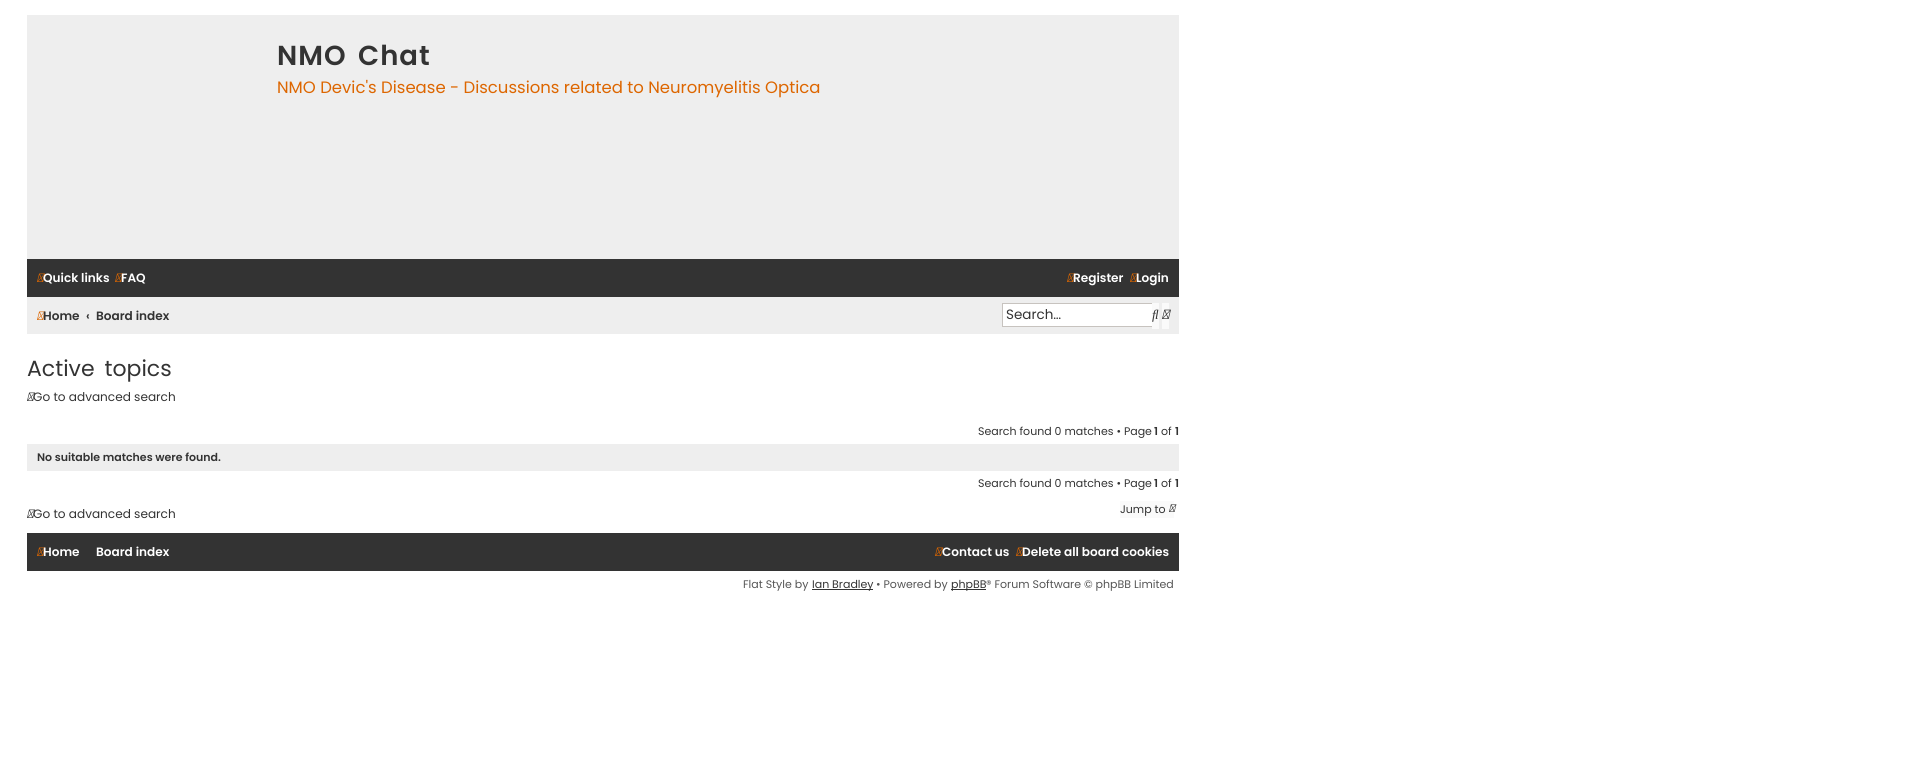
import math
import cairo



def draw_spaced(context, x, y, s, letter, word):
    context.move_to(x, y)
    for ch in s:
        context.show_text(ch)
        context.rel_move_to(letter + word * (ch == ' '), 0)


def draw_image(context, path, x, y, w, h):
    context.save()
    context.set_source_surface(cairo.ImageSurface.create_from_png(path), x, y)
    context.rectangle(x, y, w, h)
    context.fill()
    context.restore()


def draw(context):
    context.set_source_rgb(1, 1, 1)
    context.paint()
    context.set_source_rgb(238 / 255, 238 / 255, 238 / 255)
    context.rectangle(27, 15, 1152, 244)
    context.fill()
    context.set_source_rgb(51 / 255, 51 / 255, 51 / 255)
    context.rectangle(27, 259, 1152, 38)
    context.fill()
    draw_image(context, "images/1.png", 37, 273, 9, 9)
    draw_image(context, "images/1.png", 115, 273, 9, 9)
    draw_image(context, "images/1.png", 1067, 273, 9, 9)
    draw_image(context, "images/1.png", 1130, 273, 9, 9)
    context.set_source_rgb(238 / 255, 238 / 255, 238 / 255)
    context.rectangle(27, 297, 1152, 37)
    context.fill()
    draw_image(context, "images/2.png", 37, 311, 9, 9)
    context.set_source_rgb(1, 1, 1)
    context.rectangle(1003, 304, 149, 22)
    context.fill()
    context.set_source_rgb(199 / 255, 195 / 255, 191 / 255)
    context.rectangle(1002, 303, 150, 1)
    context.fill()
    context.rectangle(1002, 326, 150, 1)
    context.fill()
    context.rectangle(1002, 303, 1, 24)
    context.fill()
    context.set_source_rgb(250 / 255, 250 / 255, 250 / 255)
    context.rectangle(1152, 303, 7, 26)
    context.fill()
    draw_image(context, "images/3.png", 1152, 309, 7, 13)
    context.rectangle(1162, 303, 7, 26)
    context.fill()
    draw_image(context, "images/4.png", 1162, 309, 9, 10)
    draw_image(context, "images/5.png", 27, 392, 9, 9)
    context.set_source_rgb(238 / 255, 238 / 255, 238 / 255)
    context.rectangle(27, 444, 1152, 27)
    context.fill()
    draw_image(context, "images/5.png", 27, 509, 9, 9)
    context.set_source_rgb(250 / 255, 250 / 255, 250 / 255)
    context.rectangle(1120, 501, 54, 17)
    context.fill()
    draw_image(context, "images/6.png", 1169, 504, 8, 8)
    context.set_source_rgb(51 / 255, 51 / 255, 51 / 255)
    context.rectangle(27, 533, 1152, 38)
    context.fill()
    draw_image(context, "images/1.png", 37, 547, 9, 9)
    draw_image(context, "images/1.png", 935, 547, 9, 9)
    draw_image(context, "images/1.png", 1016, 547, 9, 9)
    context.rectangle(812, 589, 61, 1)
    context.fill()
    context.rectangle(951, 589, 35, 1)
    context.fill()
    context.select_font_face("Poppins SemiBold")
    context.set_font_size(27.5)
    draw_spaced(context, 277, 65, "NMO Chat", 1, 4)
    context.select_font_face("Poppins")
    context.set_font_size(16.5)
    context.set_source_rgb(221 / 255, 102 / 255, 0)
    context.move_to(277, 93)
    context.show_text("NMO Devic's Disease - Discussions related to Neuromyelitis Optica")
    context.select_font_face("Poppins SemiBold")
    context.set_font_size(12.1)
    context.set_source_rgb(1, 1, 1)
    context.move_to(43, 282)
    context.show_text("Quick links")
    context.move_to(121, 282)
    context.show_text("FAQ")
    context.move_to(1073, 282)
    context.show_text("Register")
    context.move_to(1136, 282)
    context.show_text("Login")
    context.set_source_rgb(51 / 255, 51 / 255, 51 / 255)
    context.move_to(43, 320)
    context.show_text("Home")
    context.move_to(86, 320)
    context.show_text("‹")
    context.move_to(96, 320)
    context.show_text("Board index")
    context.select_font_face("Poppins")
    context.set_font_size(13.5)
    context.move_to(1006, 319)
    context.show_text("Search…")
    context.set_font_size(22)
    draw_spaced(context, 27, 376, "Active topics", 0, 4)
    context.set_font_size(12.1)
    context.move_to(33, 401)
    context.show_text("Go to advanced search")
    context.set_font_size(11)
    context.move_to(978, 435)
    context.show_text("Search found 0 matches • Page")
    context.select_font_face("Poppins SemiBold")
    context.move_to(1154, 435)
    context.show_text("1")
    context.select_font_face("Poppins")
    context.move_to(1161, 435)
    context.show_text("of")
    context.select_font_face("Poppins SemiBold")
    context.move_to(1175, 435)
    context.show_text("1")
    context.move_to(37, 461)
    context.show_text("No suitable matches were found.")
    context.select_font_face("Poppins")
    context.move_to(978, 487)
    context.show_text("Search found 0 matches • Page")
    context.select_font_face("Poppins SemiBold")
    context.move_to(1154, 487)
    context.show_text("1")
    context.select_font_face("Poppins")
    context.move_to(1161, 487)
    context.show_text("of")
    context.select_font_face("Poppins SemiBold")
    context.move_to(1175, 487)
    context.show_text("1")
    context.select_font_face("Poppins")
    context.set_font_size(12.1)
    context.move_to(33, 518)
    context.show_text("Go to advanced search")
    context.set_font_size(11)
    context.move_to(1120, 513)
    context.show_text("Jump to")
    context.select_font_face("Poppins SemiBold")
    context.set_font_size(12.1)
    context.set_source_rgb(1, 1, 1)
    context.move_to(43, 556)
    context.show_text("Home")
    context.move_to(96, 556)
    context.show_text("Board index")
    context.move_to(942, 556)
    context.show_text("Contact us")
    context.move_to(1022, 556)
    context.show_text("Delete all board cookies")
    context.select_font_face("Poppins")
    context.set_font_size(11)
    context.set_source_rgb(85 / 255, 85 / 255, 85 / 255)
    context.move_to(743, 588)
    context.show_text("Flat Style by")
    context.set_source_rgb(51 / 255, 51 / 255, 51 / 255)
    context.move_to(812, 588)
    context.show_text("Ian Bradley")
    context.set_source_rgb(85 / 255, 85 / 255, 85 / 255)
    context.move_to(876, 588)
    context.show_text("• Powered by")
    context.set_source_rgb(51 / 255, 51 / 255, 51 / 255)
    context.move_to(951, 588)
    context.show_text("phpBB")
    context.set_source_rgb(85 / 255, 85 / 255, 85 / 255)
    context.move_to(986, 588)
    context.show_text("® Forum Software © phpBB Limited")


surface = cairo.ImageSurface(cairo.Format.RGB24, 1932, 772)
context = cairo.Context(surface)
options = cairo.FontOptions()
options.set_hint_metrics(cairo.HintMetrics.OFF)
options.set_hint_style(cairo.HintStyle.NONE)
context.set_font_options(options)
context.set_miter_limit(4)
draw(context)
surface.write_to_png("out.png")
